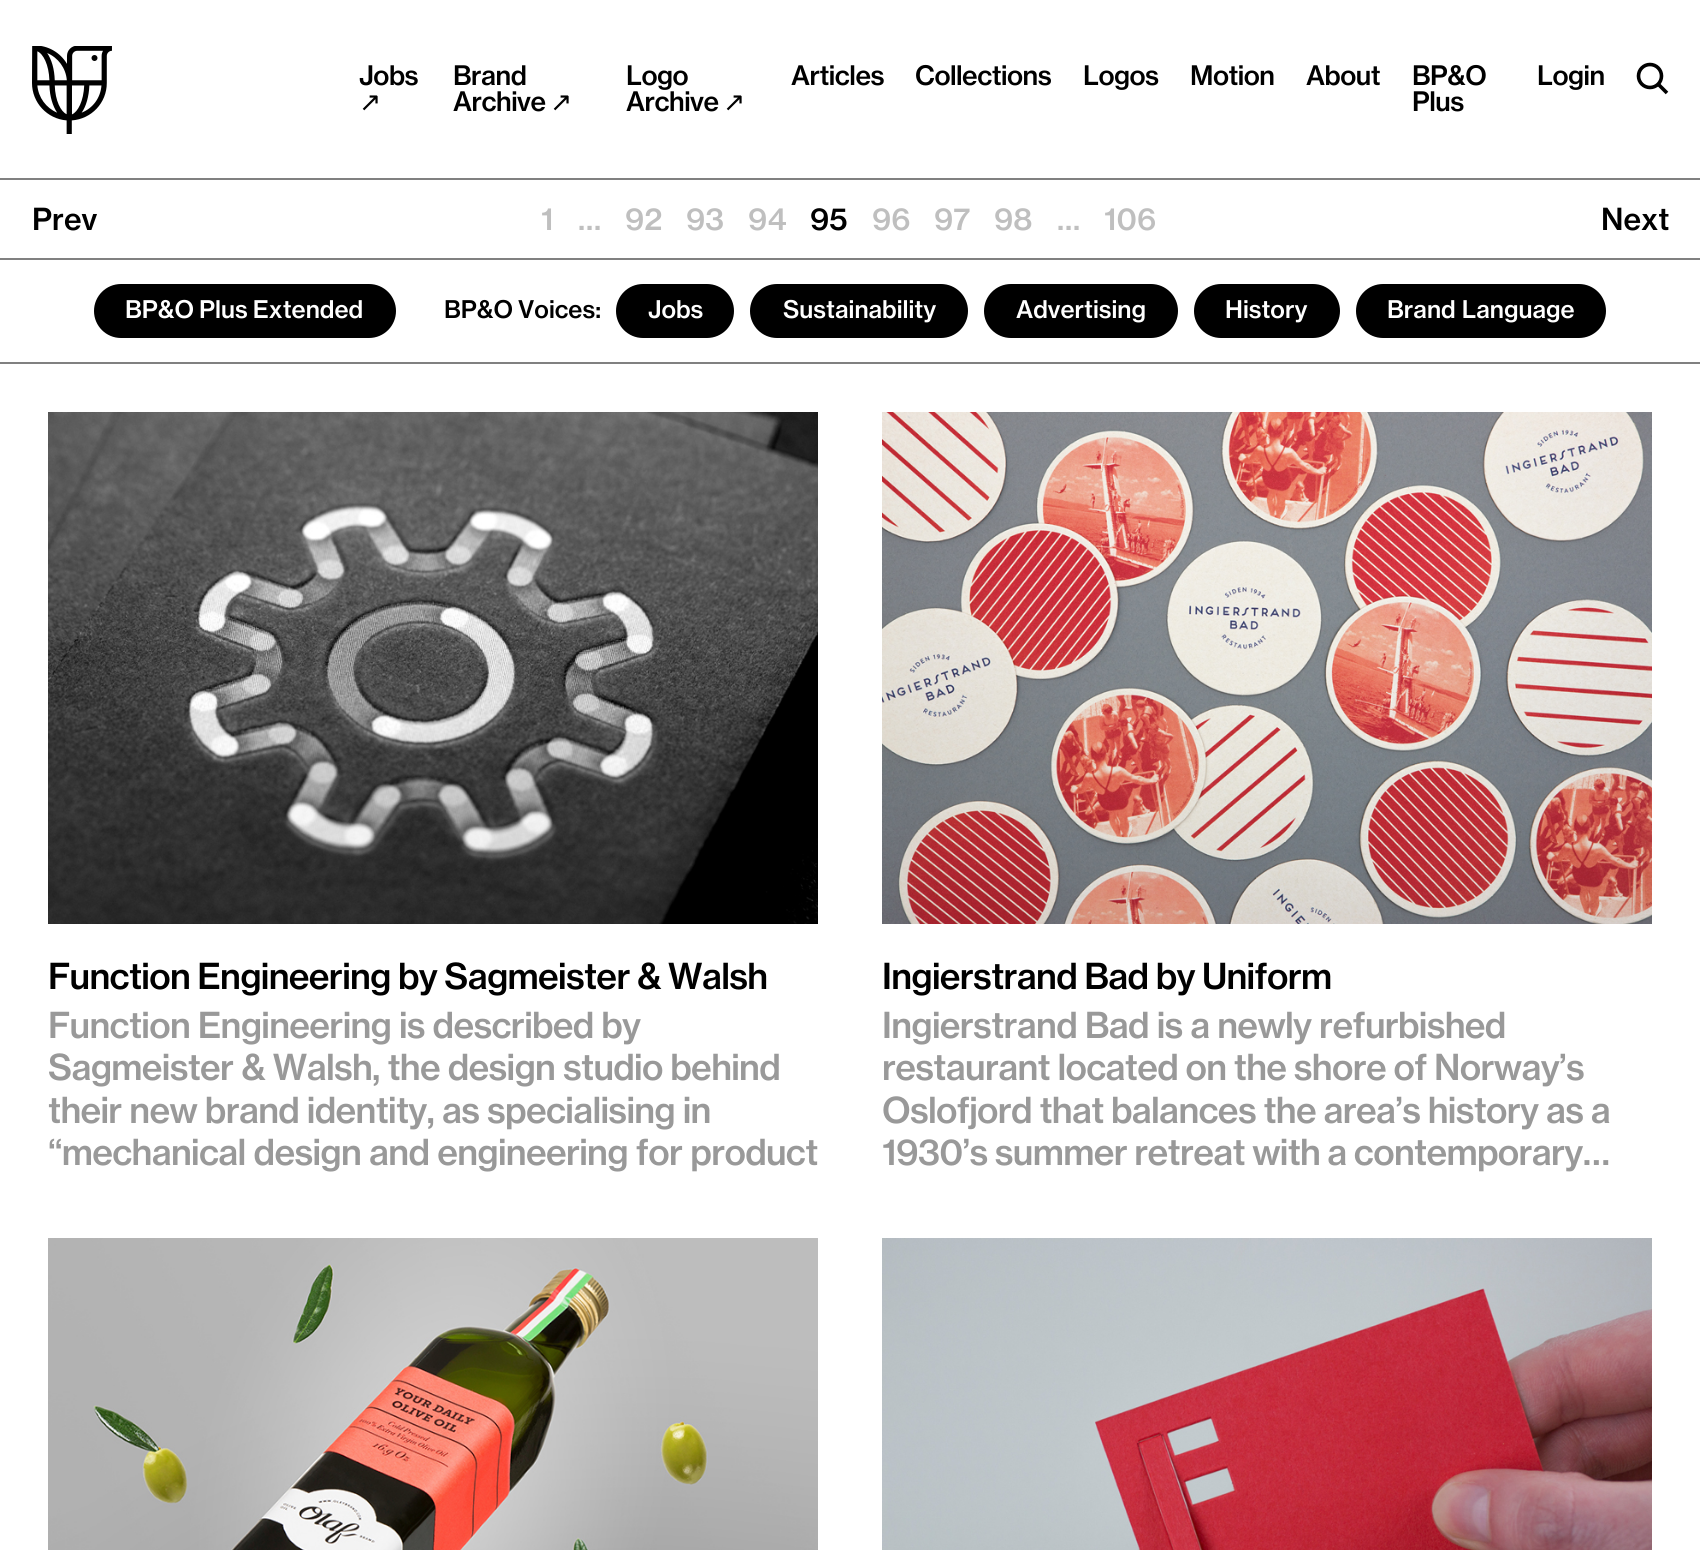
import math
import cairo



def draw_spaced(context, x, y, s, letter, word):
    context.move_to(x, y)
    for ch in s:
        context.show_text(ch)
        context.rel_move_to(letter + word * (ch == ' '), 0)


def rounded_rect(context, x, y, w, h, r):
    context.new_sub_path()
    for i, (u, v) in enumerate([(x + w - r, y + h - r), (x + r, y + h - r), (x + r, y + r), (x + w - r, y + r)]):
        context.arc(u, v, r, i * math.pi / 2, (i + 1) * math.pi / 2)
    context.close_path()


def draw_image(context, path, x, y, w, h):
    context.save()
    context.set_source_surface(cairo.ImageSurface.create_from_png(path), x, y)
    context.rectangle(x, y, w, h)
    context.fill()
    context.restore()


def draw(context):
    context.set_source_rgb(1, 1, 1)
    context.paint()
    context.set_source_rgb(128 / 255, 128 / 255, 128 / 255)
    context.rectangle(0, 178, 1700, 2)
    context.fill()
    draw_image(context, "images/1.png", 32, 46, 80, 88)
    context.arc(1650, 76, 11.5, 0, 2 * math.pi)
    context.set_source_rgb(0, 0, 0)
    context.set_line_width(3.6)
    context.stroke()
    context.new_path()
    context.move_to(1658, 84)
    context.line_to(1667, 93)
    context.stroke()
    context.set_source_rgb(128 / 255, 128 / 255, 128 / 255)
    context.rectangle(0, 258, 1700, 2)
    context.fill()
    context.rectangle(0, 362, 1700, 2)
    context.fill()
    context.set_source_rgb(0, 0, 0)
    rounded_rect(context, 94, 284, 302, 54, 27)
    context.fill()
    rounded_rect(context, 616, 284, 118, 54, 27)
    context.fill()
    rounded_rect(context, 750, 284, 218, 54, 27)
    context.fill()
    rounded_rect(context, 984, 284, 194, 54, 27)
    context.fill()
    rounded_rect(context, 1194, 284, 146, 54, 27)
    context.fill()
    rounded_rect(context, 1356, 284, 250, 54, 27)
    context.fill()
    draw_image(context, "images/2.png", 48, 412, 770, 512)
    draw_image(context, "images/3.png", 882, 412, 770, 512)
    draw_image(context, "images/4.png", 48, 1238, 770, 312)
    draw_image(context, "images/5.png", 882, 1238, 770, 312)
    context.select_font_face("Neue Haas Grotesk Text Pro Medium")
    context.set_font_size(26.5)
    draw_spaced(context, 359, 85, "Jobs", -0.5, 0)
    context.select_font_face("DejaVu Sans")
    draw_spaced(context, 359, 111, "↗", -0.5, 0)
    context.select_font_face("Neue Haas Grotesk Text Pro Medium")
    draw_spaced(context, 453, 85, "Brand", -0.5, 0)
    draw_spaced(context, 453, 111, "Archive", -0.5, 0)
    context.select_font_face("DejaVu Sans")
    draw_spaced(context, 550, 111, "↗", -0.5, 0)
    context.select_font_face("Neue Haas Grotesk Text Pro Medium")
    draw_spaced(context, 626, 85, "Logo", -0.5, 0)
    draw_spaced(context, 626, 111, "Archive", -0.5, 0)
    context.select_font_face("DejaVu Sans")
    draw_spaced(context, 723, 111, "↗", -0.5, 0)
    context.select_font_face("Neue Haas Grotesk Text Pro Medium")
    draw_spaced(context, 791, 85, "Articles", -0.5, 0)
    draw_spaced(context, 915, 85, "Collections", -0.5, 0)
    draw_spaced(context, 1083, 85, "Logos", -0.5, 0)
    draw_spaced(context, 1190, 85, "Motion", -0.5, 0)
    draw_spaced(context, 1306, 85, "About", -0.5, 0)
    draw_spaced(context, 1412, 85, "BP&O", -0.5, 0)
    draw_spaced(context, 1412, 111, "Plus", -0.5, 0)
    draw_spaced(context, 1537, 85, "Login", -0.5, 0)
    context.set_font_size(30)
    context.move_to(32, 230)
    context.show_text("Prev")
    context.set_source_rgb(191 / 255, 191 / 255, 191 / 255)
    context.move_to(541, 230)
    context.show_text("1")
    context.move_to(578, 230)
    context.show_text("…")
    context.move_to(625, 230)
    context.show_text("92")
    context.move_to(686, 230)
    context.show_text("93")
    context.move_to(748, 230)
    context.show_text("94")
    context.set_source_rgb(0, 0, 0)
    context.move_to(810, 230)
    context.show_text("95")
    context.set_source_rgb(191 / 255, 191 / 255, 191 / 255)
    context.move_to(872, 230)
    context.show_text("96")
    context.move_to(934, 230)
    context.show_text("97")
    context.move_to(994, 230)
    context.show_text("98")
    context.move_to(1057, 230)
    context.show_text("…")
    context.move_to(1104, 230)
    context.show_text("106")
    context.set_source_rgb(0, 0, 0)
    context.move_to(1601, 230)
    context.show_text("Next")
    context.set_font_size(24)
    context.set_source_rgb(1, 1, 1)
    draw_spaced(context, 125, 318, "BP&O Plus Extended", 0, -1)
    context.set_source_rgb(0, 0, 0)
    draw_spaced(context, 444, 318, "BP&O Voices:", 0, -1)
    context.set_source_rgb(1, 1, 1)
    context.move_to(648, 318)
    context.show_text("Jobs")
    context.move_to(783, 318)
    context.show_text("Sustainability")
    context.move_to(1016, 318)
    context.show_text("Advertising")
    context.move_to(1225, 318)
    context.show_text("History")
    context.move_to(1387, 318)
    context.show_text("Brand Language")
    context.set_font_size(35.3)
    context.set_source_rgb(0, 0, 0)
    draw_spaced(context, 48, 989, "Function Engineering by Sagmeister & Walsh", -0.7, -1)
    context.set_source_rgb(153 / 255, 153 / 255, 153 / 255)
    draw_spaced(context, 48, 1038, "Function Engineering is described by", -0.7, -0.5)
    draw_spaced(context, 48, 1080, "Sagmeister & Walsh, the design studio behind", -0.7, -0.5)
    draw_spaced(context, 48, 1123, "their new brand identity, as specialising in", -0.7, -0.5)
    draw_spaced(context, 48, 1165, "“mechanical design and engineering for product", -0.7, -0.25)
    context.set_source_rgb(0, 0, 0)
    draw_spaced(context, 882, 989, "Ingierstrand Bad by Uniform", -0.7, -1)
    context.set_source_rgb(153 / 255, 153 / 255, 153 / 255)
    draw_spaced(context, 882, 1038, "Ingierstrand Bad is a newly refurbished", -0.7, -0.5)
    draw_spaced(context, 882, 1080, "restaurant located on the shore of Norway’s", -0.7, -0.75)
    draw_spaced(context, 882, 1123, "Oslofjord that balances the area’s history as a", -0.7, -0.75)
    draw_spaced(context, 882, 1165, "1930’s summer retreat with a contemporary…", -0.7, -1)


surface = cairo.ImageSurface(cairo.Format.RGB24, 1700, 1550)
context = cairo.Context(surface)
options = cairo.FontOptions()
options.set_hint_metrics(cairo.HintMetrics.OFF)
options.set_hint_style(cairo.HintStyle.NONE)
context.set_font_options(options)
context.set_miter_limit(4)
draw(context)
surface.write_to_png("out.png")
